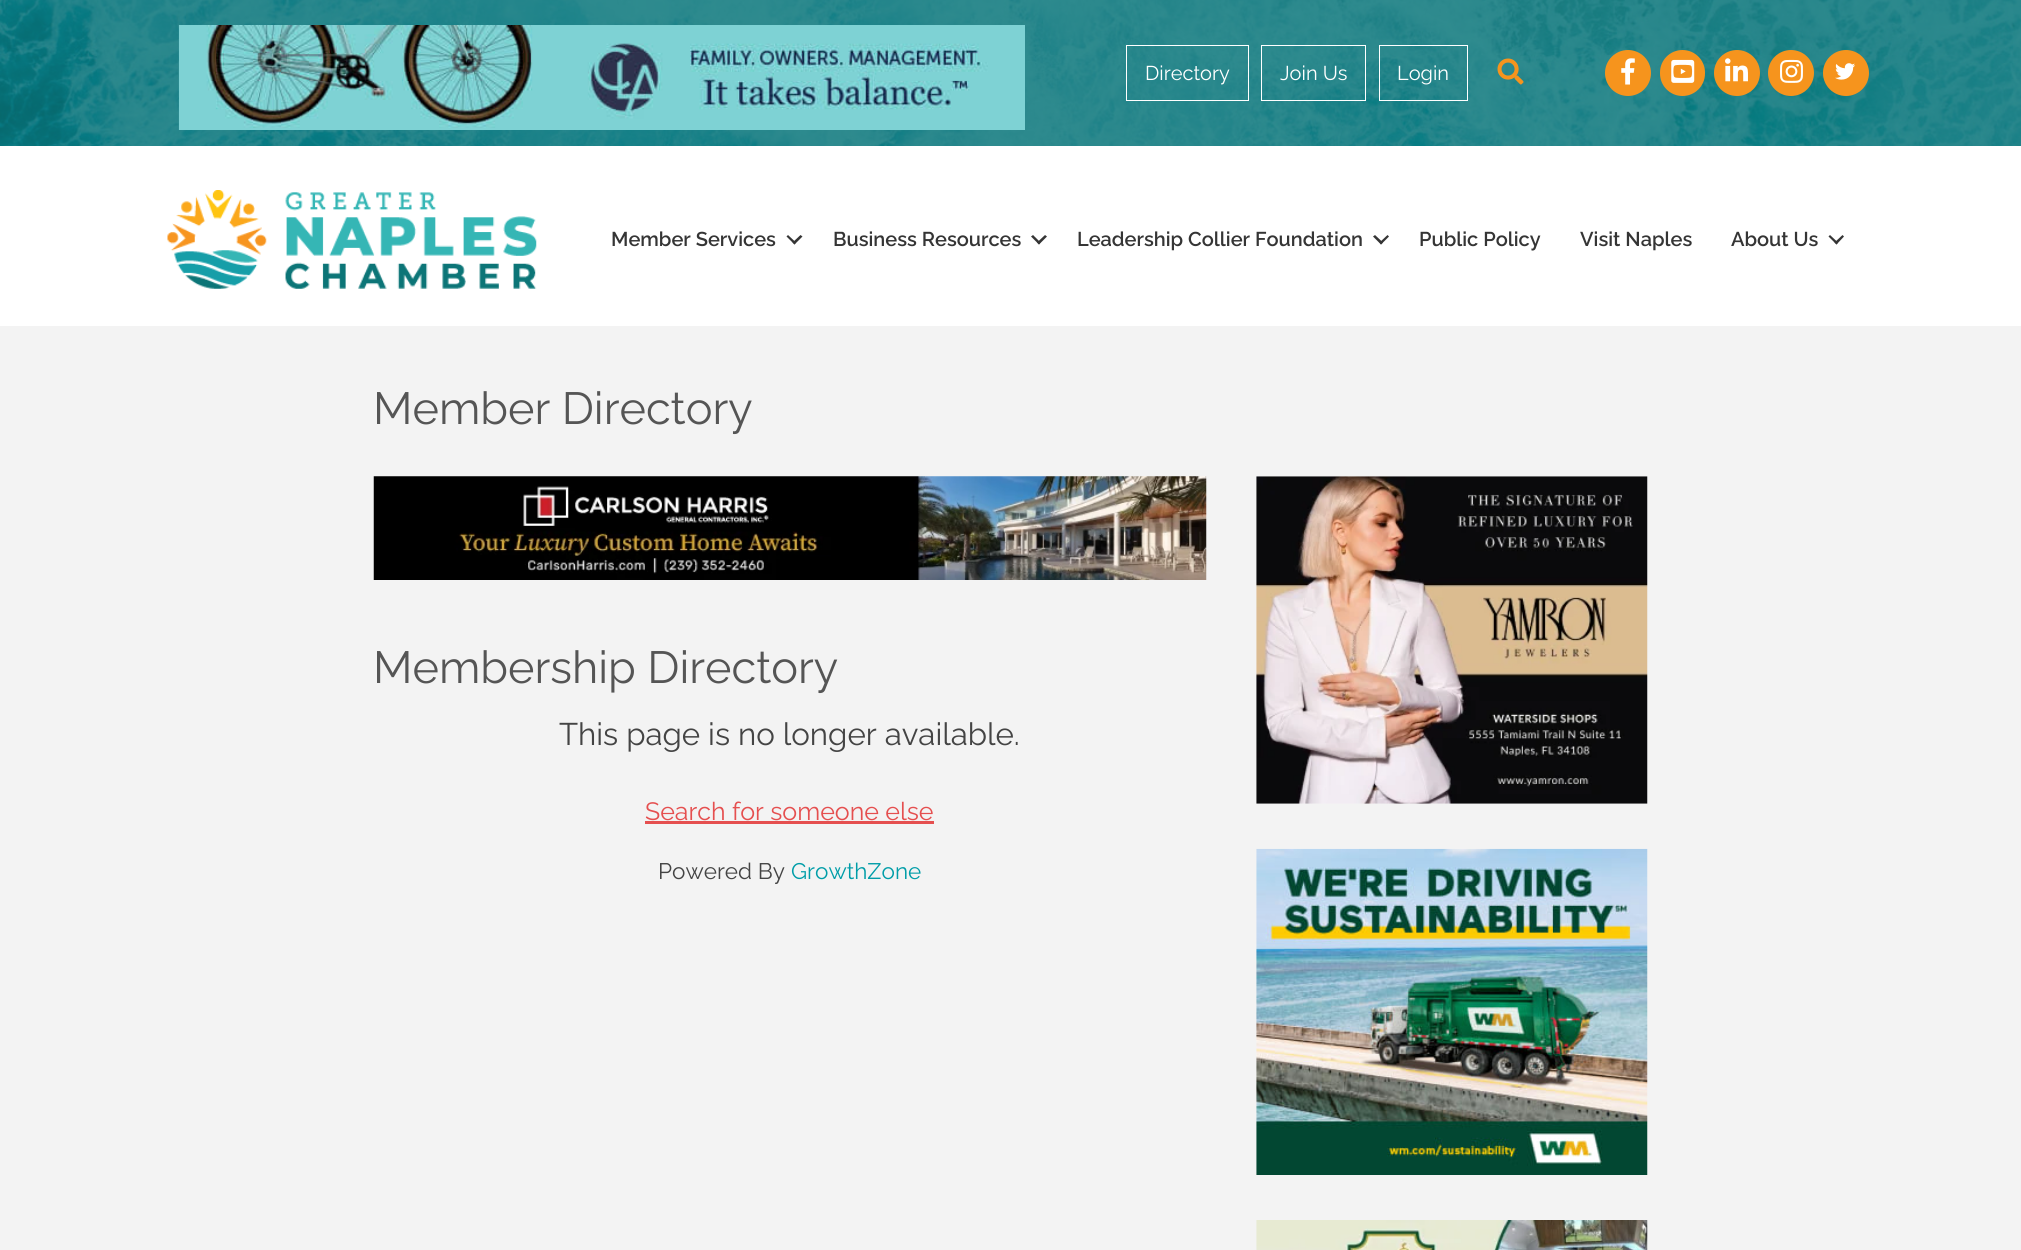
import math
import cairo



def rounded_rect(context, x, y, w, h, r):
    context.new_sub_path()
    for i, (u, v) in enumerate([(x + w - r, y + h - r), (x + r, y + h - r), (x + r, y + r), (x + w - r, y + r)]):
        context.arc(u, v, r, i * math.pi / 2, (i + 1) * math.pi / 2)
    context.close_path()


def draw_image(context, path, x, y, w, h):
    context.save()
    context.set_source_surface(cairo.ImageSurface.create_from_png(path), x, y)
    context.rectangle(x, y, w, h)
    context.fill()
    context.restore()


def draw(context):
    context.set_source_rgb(1, 1, 1)
    context.paint()
    draw_image(context, "images/1.png", 0, 0, 2021, 146)
    draw_image(context, "images/2.png", 178, 25, 847, 105)
    context.rectangle(1126.5, 45.5, 122, 55)
    context.set_source_rgb(1, 1, 1)
    context.set_line_width(1)
    context.stroke()
    context.rectangle(1261.5, 45.5, 104, 55)
    context.stroke()
    context.rectangle(1379.5, 45.5, 88, 55)
    context.stroke()
    draw_image(context, "images/3.png", 1497, 58, 27, 27)
    context.set_source_rgb(246 / 255, 148 / 255, 29 / 255)
    context.arc(1628, 73, 23, 0, 2 * math.pi)
    context.fill()
    draw_image(context, "images/4.png", 1621, 58, 14, 27)
    rounded_rect(context, 1660, 50, 45, 46, 22.5)
    context.fill()
    draw_image(context, "images/5.png", 1671, 59, 24, 24)
    context.arc(1737, 73, 23, 0, 2 * math.pi)
    context.fill()
    draw_image(context, "images/6.png", 1725, 58, 23, 24)
    context.arc(1791, 73, 23, 0, 2 * math.pi)
    context.fill()
    draw_image(context, "images/7.png", 1780, 59, 23, 24)
    context.arc(1846, 73, 23, 0, 2 * math.pi)
    context.fill()
    draw_image(context, "images/8.png", 1835, 63, 20, 17)
    draw_image(context, "images/9.png", 167, 190, 370, 99)
    context.set_source_rgb(53 / 255, 53 / 255, 53 / 255)
    context.new_path()
    context.move_to(800.5, 235)
    context.line_to(802.5, 236.5)
    context.line_to(794.5, 244.5)
    context.line_to(792.5, 242.5)
    context.close_path()
    context.fill()
    context.new_path()
    context.move_to(788, 235)
    context.line_to(796, 242.5)
    context.line_to(794.5, 244.5)
    context.line_to(786.5, 236.5)
    context.close_path()
    context.fill()
    context.new_path()
    context.move_to(1045, 235)
    context.line_to(1047, 236.5)
    context.line_to(1039, 244.5)
    context.line_to(1037, 242.5)
    context.close_path()
    context.fill()
    context.new_path()
    context.move_to(1033, 235)
    context.line_to(1040.5, 242.5)
    context.line_to(1039, 244.5)
    context.line_to(1031, 236.5)
    context.close_path()
    context.fill()
    context.new_path()
    context.move_to(1387.5, 235)
    context.line_to(1389, 236.5)
    context.line_to(1381, 244.5)
    context.line_to(1379.5, 242.5)
    context.close_path()
    context.fill()
    context.new_path()
    context.move_to(1375, 235)
    context.line_to(1383, 242.5)
    context.line_to(1381, 244.5)
    context.line_to(1373, 236.5)
    context.close_path()
    context.fill()
    context.new_path()
    context.move_to(1842.5, 235)
    context.line_to(1844, 236.5)
    context.line_to(1836.5, 244.5)
    context.line_to(1834.5, 242.5)
    context.close_path()
    context.fill()
    context.new_path()
    context.move_to(1830, 235)
    context.line_to(1838, 242.5)
    context.line_to(1836.5, 244.5)
    context.line_to(1828.5, 236.5)
    context.close_path()
    context.fill()
    context.set_source_rgb(243 / 255, 243 / 255, 243 / 255)
    context.rectangle(0, 326, 2021, 924)
    context.fill()
    draw_image(context, "images/10.png", 373, 476, 834, 104)
    context.set_source_rgb(229 / 255, 79 / 255, 79 / 255)
    context.rectangle(645, 821, 289, 3)
    context.fill()
    draw_image(context, "images/11.png", 1256, 476, 392, 328)
    draw_image(context, "images/12.png", 1256, 848, 392, 327)
    draw_image(context, "images/13.png", 1256, 1220, 392, 30)
    context.select_font_face("Raleway")
    context.set_font_size(20)
    context.set_source_rgb(1, 1, 1)
    context.move_to(1145, 80)
    context.show_text("Directory")
    context.move_to(1280, 80)
    context.show_text("Join Us")
    context.move_to(1397, 80)
    context.show_text("Login")
    context.select_font_face("Raleway SemiBold")
    context.set_source_rgb(53 / 255, 53 / 255, 53 / 255)
    context.move_to(611, 246)
    context.show_text("Member Services")
    context.move_to(833, 246)
    context.show_text("Business Resources")
    context.move_to(1077, 246)
    context.show_text("Leadership Collier Foundation")
    context.move_to(1419, 246)
    context.show_text("Public Policy")
    context.move_to(1580, 246)
    context.show_text("Visit Naples")
    context.move_to(1731, 246)
    context.show_text("About Us")
    context.select_font_face("Raleway")
    context.set_font_size(45)
    context.set_source_rgb(85 / 255, 85 / 255, 85 / 255)
    context.move_to(373, 424)
    context.show_text("Member Directory")
    context.move_to(373, 683)
    context.show_text("Membership Directory")
    context.set_font_size(31.25)
    context.set_source_rgb(68 / 255, 68 / 255, 68 / 255)
    context.move_to(559, 745)
    context.show_text("This page is no longer available.")
    context.set_font_size(25)
    context.set_source_rgb(229 / 255, 79 / 255, 79 / 255)
    context.move_to(645, 820)
    context.show_text("Search for someone else")
    context.set_font_size(22.5)
    context.set_source_rgb(68 / 255, 68 / 255, 68 / 255)
    context.move_to(658, 879)
    context.show_text("Powered By")
    context.set_source_rgb(0, 157 / 255, 168 / 255)
    context.move_to(791, 879)
    context.show_text("GrowthZone")


surface = cairo.ImageSurface(cairo.Format.RGB24, 2021, 1250)
context = cairo.Context(surface)
options = cairo.FontOptions()
options.set_hint_metrics(cairo.HintMetrics.OFF)
options.set_hint_style(cairo.HintStyle.NONE)
context.set_font_options(options)
context.set_miter_limit(4)
draw(context)
surface.write_to_png("out.png")
